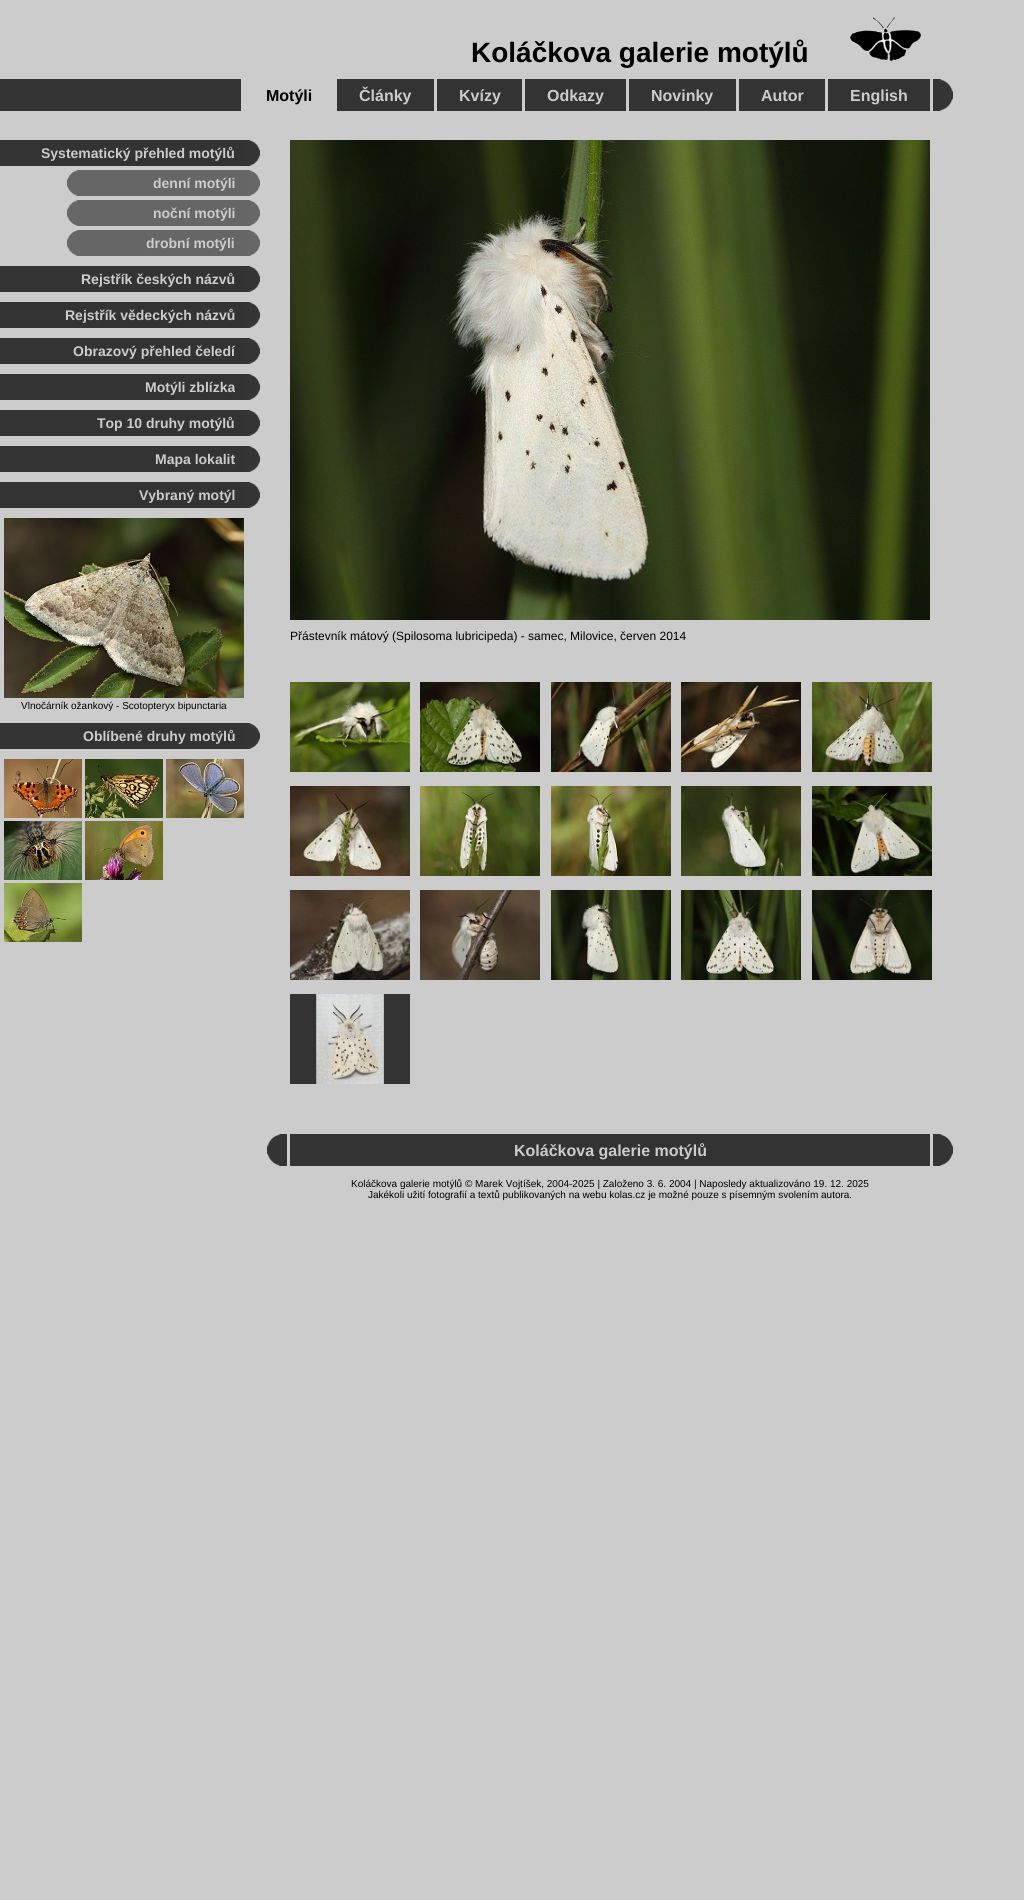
import math
import cairo



def draw_image(context, path, x, y, w, h):
    context.save()
    context.set_source_surface(cairo.ImageSurface.create_from_png(path), x, y)
    context.rectangle(x, y, w, h)
    context.fill()
    context.restore()


def draw(context):
    context.set_source_rgb(204 / 255, 204 / 255, 204 / 255)
    context.paint()
    draw_image(context, "images/1.png", 850, 17, 71, 44)
    context.set_source_rgb(51 / 255, 51 / 255, 51 / 255)
    context.rectangle(0, 79, 937, 32)
    context.fill()
    context.set_source_rgb(204 / 255, 204 / 255, 204 / 255)
    context.rectangle(241, 79, 96, 32)
    context.fill()
    context.rectangle(434, 79, 3, 32)
    context.fill()
    context.rectangle(522, 79, 3, 32)
    context.fill()
    context.rectangle(626, 79, 3, 32)
    context.fill()
    context.rectangle(736, 79, 3, 32)
    context.fill()
    context.rectangle(825, 79, 3, 32)
    context.fill()
    context.rectangle(930, 79, 3, 32)
    context.fill()
    draw_image(context, "images/2.png", 937, 79, 16, 32)
    context.set_source_rgb(51 / 255, 51 / 255, 51 / 255)
    context.rectangle(0, 140, 247, 26)
    context.fill()
    draw_image(context, "images/3.png", 247, 140, 13, 26)
    draw_image(context, "images/4.png", 67, 170, 13, 26)
    context.set_source_rgb(102 / 255, 102 / 255, 102 / 255)
    context.rectangle(80, 170, 167, 26)
    context.fill()
    draw_image(context, "images/5.png", 247, 170, 13, 26)
    draw_image(context, "images/4.png", 67, 200, 13, 26)
    context.rectangle(80, 200, 167, 26)
    context.fill()
    draw_image(context, "images/5.png", 247, 200, 13, 26)
    draw_image(context, "images/4.png", 67, 230, 13, 26)
    context.rectangle(80, 230, 167, 26)
    context.fill()
    draw_image(context, "images/5.png", 247, 230, 13, 26)
    context.set_source_rgb(51 / 255, 51 / 255, 51 / 255)
    context.rectangle(0, 266, 247, 26)
    context.fill()
    draw_image(context, "images/3.png", 247, 266, 13, 26)
    context.rectangle(0, 302, 247, 26)
    context.fill()
    draw_image(context, "images/3.png", 247, 302, 13, 26)
    context.rectangle(0, 338, 247, 26)
    context.fill()
    draw_image(context, "images/3.png", 247, 338, 13, 26)
    context.rectangle(0, 374, 247, 26)
    context.fill()
    draw_image(context, "images/3.png", 247, 374, 13, 26)
    context.rectangle(0, 410, 247, 26)
    context.fill()
    draw_image(context, "images/3.png", 247, 410, 13, 26)
    context.rectangle(0, 446, 247, 26)
    context.fill()
    draw_image(context, "images/3.png", 247, 446, 13, 26)
    context.rectangle(0, 482, 247, 26)
    context.fill()
    draw_image(context, "images/3.png", 247, 482, 13, 26)
    draw_image(context, "images/6.png", 4, 518, 240, 180)
    context.rectangle(0, 723, 247, 26)
    context.fill()
    draw_image(context, "images/3.png", 247, 723, 13, 26)
    draw_image(context, "images/7.png", 4, 759, 78, 59)
    draw_image(context, "images/8.png", 85, 759, 78, 59)
    draw_image(context, "images/9.png", 166, 759, 78, 59)
    draw_image(context, "images/10.png", 4, 821, 78, 59)
    draw_image(context, "images/11.png", 85, 821, 78, 59)
    draw_image(context, "images/12.png", 4, 883, 78, 59)
    draw_image(context, "images/13.png", 290, 140, 640, 480)
    draw_image(context, "images/14.png", 290, 682, 120, 90)
    draw_image(context, "images/15.png", 420, 682, 120, 90)
    draw_image(context, "images/16.png", 551, 682, 120, 90)
    draw_image(context, "images/17.png", 681, 682, 120, 90)
    draw_image(context, "images/18.png", 812, 682, 120, 90)
    draw_image(context, "images/19.png", 290, 786, 120, 90)
    draw_image(context, "images/20.png", 420, 786, 120, 90)
    draw_image(context, "images/21.png", 551, 786, 120, 90)
    draw_image(context, "images/22.png", 681, 786, 120, 90)
    draw_image(context, "images/23.png", 812, 786, 120, 90)
    draw_image(context, "images/24.png", 290, 890, 120, 90)
    draw_image(context, "images/25.png", 420, 890, 120, 90)
    draw_image(context, "images/26.png", 551, 890, 120, 90)
    draw_image(context, "images/27.png", 681, 890, 120, 90)
    draw_image(context, "images/28.png", 812, 890, 120, 90)
    draw_image(context, "images/29.png", 290, 994, 120, 90)
    context.rectangle(283, 1134, 4, 32)
    context.fill()
    draw_image(context, "images/30.png", 267, 1134, 16, 32)
    context.rectangle(290, 1134, 640, 32)
    context.fill()
    context.rectangle(933, 1134, 4, 32)
    context.fill()
    draw_image(context, "images/2.png", 937, 1134, 16, 32)
    context.select_font_face("Liberation Sans", cairo.FontSlant.NORMAL, cairo.FontWeight.BOLD)
    context.set_font_size(28)
    context.set_source_rgb(0, 0, 0)
    context.move_to(471, 62)
    context.show_text("Koláčkova galerie motýlů")
    context.set_font_size(16)
    context.set_source_rgb(204 / 255, 204 / 255, 204 / 255)
    context.move_to(359, 101)
    context.show_text("Články")
    context.set_source_rgb(0, 0, 0)
    context.move_to(266, 101)
    context.show_text("Motýli")
    context.set_source_rgb(204 / 255, 204 / 255, 204 / 255)
    context.move_to(459, 101)
    context.show_text("Kvízy")
    context.move_to(547, 101)
    context.show_text("Odkazy")
    context.move_to(651, 101)
    context.show_text("Novinky")
    context.move_to(761, 101)
    context.show_text("Autor")
    context.move_to(850, 101)
    context.show_text("English")
    context.set_font_size(14)
    context.move_to(41, 158)
    context.show_text("Systematický přehled motýlů")
    context.move_to(153, 188)
    context.show_text("denní motýli")
    context.move_to(153, 218)
    context.show_text("noční motýli")
    context.move_to(146, 248)
    context.show_text("drobní motýli")
    context.move_to(81, 284)
    context.show_text("Rejstřík českých názvů")
    context.move_to(65, 320)
    context.show_text("Rejstřík vědeckých názvů")
    context.move_to(73, 356)
    context.show_text("Obrazový přehled čeledí")
    context.move_to(145, 392)
    context.show_text("Motýli zblízka")
    context.move_to(97, 428)
    context.show_text("Top 10 druhy motýlů")
    context.move_to(155, 464)
    context.show_text("Mapa lokalit")
    context.move_to(139, 500)
    context.show_text("Vybraný motýl")
    context.select_font_face("Liberation Sans")
    context.set_font_size(10)
    context.set_source_rgb(0, 0, 0)
    context.move_to(21, 709)
    context.show_text("Vlnočárník ožankový - Scotopteryx bipunctaria")
    context.select_font_face("Liberation Sans", cairo.FontSlant.NORMAL, cairo.FontWeight.BOLD)
    context.set_font_size(14)
    context.set_source_rgb(204 / 255, 204 / 255, 204 / 255)
    context.move_to(83, 741)
    context.show_text("Oblíbené druhy motýlů")
    context.select_font_face("Liberation Sans")
    context.set_font_size(12)
    context.set_source_rgb(0, 0, 0)
    context.move_to(290, 640)
    context.show_text("Přástevník mátový (Spilosoma lubricipeda) - samec, Milovice, červen 2014")
    context.select_font_face("Liberation Sans", cairo.FontSlant.NORMAL, cairo.FontWeight.BOLD)
    context.set_font_size(16)
    context.set_source_rgb(204 / 255, 204 / 255, 204 / 255)
    context.move_to(514, 1156)
    context.show_text("Koláčkova galerie motýlů")
    context.select_font_face("Liberation Sans")
    context.set_font_size(10)
    context.set_source_rgb(0, 0, 0)
    context.move_to(351, 1187)
    context.show_text("Koláčkova galerie motýlů © Marek Vojtíšek, 2004-2025 | Založeno 3. 6. 2004 | Naposledy aktualizováno 19. 12. 2025")
    context.move_to(368, 1198)
    context.show_text("Jakékoli užití fotografií a textů publikovaných na webu kolas.cz je možné pouze s písemným svolením autora.")


surface = cairo.ImageSurface(cairo.Format.RGB24, 1024, 1900)
context = cairo.Context(surface)
options = cairo.FontOptions()
options.set_hint_metrics(cairo.HintMetrics.OFF)
options.set_hint_style(cairo.HintStyle.NONE)
context.set_font_options(options)
context.set_miter_limit(4)
draw(context)
surface.write_to_png("out.png")
